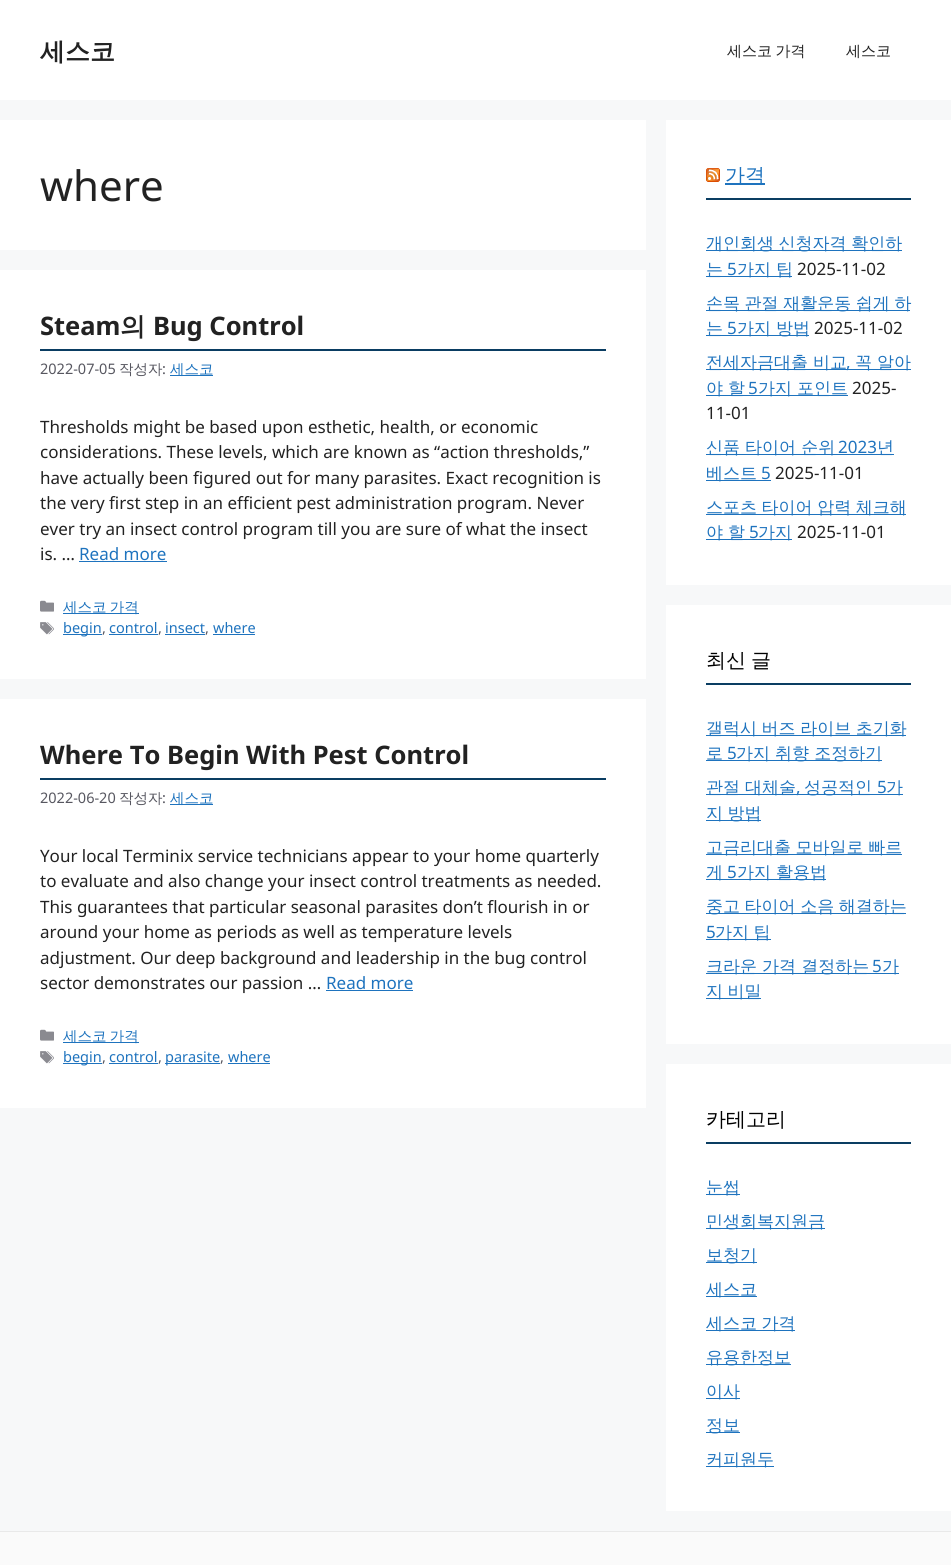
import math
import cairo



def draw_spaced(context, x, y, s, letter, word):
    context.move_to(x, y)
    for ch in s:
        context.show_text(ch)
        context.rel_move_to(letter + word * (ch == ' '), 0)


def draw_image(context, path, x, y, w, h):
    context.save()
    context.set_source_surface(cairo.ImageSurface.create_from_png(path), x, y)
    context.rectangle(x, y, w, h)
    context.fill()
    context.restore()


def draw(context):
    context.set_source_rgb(247 / 255, 248 / 255, 249 / 255)
    context.paint()
    context.set_source_rgb(1, 1, 1)
    context.rectangle(0, 0, 951, 100)
    context.fill()
    context.rectangle(0, 120, 646, 130)
    context.fill()
    context.rectangle(0, 270, 646, 409)
    context.fill()
    context.set_source_rgb(10 / 255, 61 / 255, 98 / 255)
    context.rectangle(40, 349, 566, 2)
    context.fill()
    context.set_source_rgb(30 / 255, 115 / 255, 190 / 255)
    context.rectangle(170, 375, 43, 1)
    context.fill()
    context.rectangle(79, 561, 88, 1)
    context.fill()
    draw_image(context, "images/1.png", 40, 600, 14, 12)
    context.rectangle(63, 613, 76, 1)
    context.fill()
    draw_image(context, "images/2.png", 40, 622, 14, 13)
    context.rectangle(63, 634, 39, 1)
    context.fill()
    context.rectangle(109, 634, 49, 1)
    context.fill()
    context.rectangle(165, 634, 40, 1)
    context.fill()
    context.rectangle(213, 634, 42, 1)
    context.fill()
    context.set_source_rgb(1, 1, 1)
    context.rectangle(0, 699, 646, 409)
    context.fill()
    context.set_source_rgb(10 / 255, 61 / 255, 98 / 255)
    context.rectangle(40, 778, 566, 2)
    context.fill()
    context.set_source_rgb(30 / 255, 115 / 255, 190 / 255)
    context.rectangle(170, 804, 43, 1)
    context.fill()
    context.rectangle(326, 990, 87, 1)
    context.fill()
    draw_image(context, "images/1.png", 40, 1029, 14, 12)
    context.rectangle(63, 1042, 76, 1)
    context.fill()
    draw_image(context, "images/2.png", 40, 1051, 14, 13)
    context.rectangle(63, 1063, 39, 1)
    context.fill()
    context.rectangle(109, 1063, 49, 1)
    context.fill()
    context.rectangle(165, 1063, 55, 1)
    context.fill()
    context.rectangle(228, 1063, 42, 1)
    context.fill()
    context.set_source_rgb(1, 1, 1)
    context.rectangle(666, 120, 285, 465)
    context.fill()
    draw_image(context, "images/3.png", 706, 168, 14, 14)
    context.set_source_rgb(30 / 255, 115 / 255, 190 / 255)
    context.rectangle(725, 183, 40, 2)
    context.fill()
    context.set_source_rgb(10 / 255, 61 / 255, 98 / 255)
    context.rectangle(706, 198, 205, 2)
    context.fill()
    context.set_source_rgb(30 / 255, 115 / 255, 190 / 255)
    context.rectangle(706, 250, 196, 1)
    context.fill()
    context.rectangle(706, 276, 86, 1)
    context.fill()
    context.rectangle(706, 310, 204, 1)
    context.fill()
    context.rectangle(706, 335, 103, 1)
    context.fill()
    context.rectangle(706, 369, 205, 1)
    context.fill()
    context.rectangle(706, 395, 142, 1)
    context.fill()
    context.rectangle(706, 454, 188, 1)
    context.fill()
    context.rectangle(706, 480, 65, 1)
    context.fill()
    context.rectangle(706, 514, 200, 1)
    context.fill()
    context.rectangle(706, 539, 86, 1)
    context.fill()
    context.set_source_rgb(1, 1, 1)
    context.rectangle(666, 605, 285, 439)
    context.fill()
    context.set_source_rgb(10 / 255, 61 / 255, 98 / 255)
    context.rectangle(706, 683, 205, 2)
    context.fill()
    context.set_source_rgb(30 / 255, 115 / 255, 190 / 255)
    context.rectangle(706, 735, 200, 1)
    context.fill()
    context.rectangle(706, 760, 176, 1)
    context.fill()
    context.rectangle(706, 794, 197, 1)
    context.fill()
    context.rectangle(706, 820, 55, 1)
    context.fill()
    context.rectangle(706, 854, 196, 1)
    context.fill()
    context.rectangle(706, 879, 120, 1)
    context.fill()
    context.rectangle(706, 913, 200, 1)
    context.fill()
    context.rectangle(706, 939, 65, 1)
    context.fill()
    context.rectangle(706, 973, 193, 1)
    context.fill()
    context.rectangle(706, 998, 55, 1)
    context.fill()
    context.set_source_rgb(1, 1, 1)
    context.rectangle(666, 1064, 285, 447)
    context.fill()
    context.set_source_rgb(10 / 255, 61 / 255, 98 / 255)
    context.rectangle(706, 1142, 205, 2)
    context.fill()
    context.set_source_rgb(30 / 255, 115 / 255, 190 / 255)
    context.rectangle(706, 1194, 34, 1)
    context.fill()
    context.rectangle(706, 1228, 119, 1)
    context.fill()
    context.rectangle(706, 1262, 51, 1)
    context.fill()
    context.rectangle(706, 1296, 51, 1)
    context.fill()
    context.rectangle(706, 1330, 89, 1)
    context.fill()
    context.rectangle(706, 1364, 85, 1)
    context.fill()
    context.rectangle(706, 1398, 34, 1)
    context.fill()
    context.rectangle(706, 1432, 34, 1)
    context.fill()
    context.rectangle(706, 1466, 68, 1)
    context.fill()
    context.set_source_rgb(250 / 255, 250 / 255, 250 / 255)
    context.rectangle(0, 1532, 951, 33)
    context.fill()
    context.set_source_rgb(233 / 255, 233 / 255, 233 / 255)
    context.rectangle(0, 1531, 951, 1)
    context.fill()
    context.select_font_face("WenQuanYi Zen Hei", cairo.FontSlant.NORMAL, cairo.FontWeight.BOLD)
    context.set_font_size(25)
    context.set_source_rgb(34 / 255, 34 / 255, 34 / 255)
    context.move_to(40, 60)
    context.show_text("세스코")
    context.select_font_face("WenQuanYi Zen Hei Medium")
    context.set_font_size(15)
    draw_spaced(context, 727, 56, "세스코 가격", 0, -1)
    context.move_to(846, 56)
    context.show_text("세스코")
    context.select_font_face("Noto Sans")
    context.set_font_size(42)
    context.move_to(40, 201)
    context.show_text("where")
    context.select_font_face("Noto Sans", cairo.FontSlant.NORMAL, cairo.FontWeight.BOLD)
    context.set_font_size(25.5)
    context.move_to(40, 335)
    context.show_text("Steam")
    context.select_font_face("WenQuanYi Zen Hei", cairo.FontSlant.NORMAL, cairo.FontWeight.BOLD)
    context.move_to(120, 335)
    context.show_text("의")
    context.select_font_face("Noto Sans", cairo.FontSlant.NORMAL, cairo.FontWeight.BOLD)
    context.move_to(153, 335)
    context.show_text("Bug Control")
    context.select_font_face("Noto Sans")
    context.set_font_size(14.5)
    context.set_source_rgb(87 / 255, 87 / 255, 96 / 255)
    context.move_to(40, 374)
    context.show_text("2022-07-05")
    context.select_font_face("WenQuanYi Zen Hei Medium")
    context.move_to(119, 374)
    context.show_text("작성자")
    context.select_font_face("Noto Sans")
    context.move_to(162, 374)
    context.show_text(":")
    context.select_font_face("WenQuanYi Zen Hei Medium")
    context.set_source_rgb(30 / 255, 115 / 255, 190 / 255)
    context.move_to(170, 374)
    context.show_text("세스코")
    context.select_font_face("Noto Sans")
    context.set_font_size(17)
    context.set_source_rgb(34 / 255, 34 / 255, 34 / 255)
    context.move_to(40, 433)
    context.show_text("Thresholds might be based upon esthetic, health, or economic")
    context.move_to(40, 458)
    context.show_text("considerations. These levels, which are known as “action thresholds,”")
    context.move_to(40, 484)
    context.show_text("have actually been figured out for many parasites. Exact recognition is")
    context.move_to(40, 509)
    context.show_text("the very first step in an efficient pest administration program. Never")
    context.move_to(40, 535)
    context.show_text("ever try an insect control program till you are sure of what the insect")
    context.move_to(40, 560)
    context.show_text("is. …")
    context.set_source_rgb(30 / 255, 115 / 255, 190 / 255)
    context.move_to(79, 560)
    context.show_text("Read more")
    context.select_font_face("WenQuanYi Zen Hei Medium")
    context.set_font_size(14.5)
    draw_spaced(context, 63, 612, "세스코 가격", 0, -1)
    context.select_font_face("Noto Sans")
    context.move_to(63, 633)
    context.show_text("begin")
    context.set_source_rgb(87 / 255, 87 / 255, 96 / 255)
    context.move_to(102, 633)
    context.show_text(",")
    context.set_source_rgb(30 / 255, 115 / 255, 190 / 255)
    context.move_to(109, 633)
    context.show_text("control")
    context.set_source_rgb(87 / 255, 87 / 255, 96 / 255)
    context.move_to(158, 633)
    context.show_text(",")
    context.set_source_rgb(30 / 255, 115 / 255, 190 / 255)
    context.move_to(165, 633)
    context.show_text("insect")
    context.set_source_rgb(87 / 255, 87 / 255, 96 / 255)
    context.move_to(205, 633)
    context.show_text(",")
    context.set_source_rgb(30 / 255, 115 / 255, 190 / 255)
    context.move_to(213, 633)
    context.show_text("where")
    context.select_font_face("Noto Sans", cairo.FontSlant.NORMAL, cairo.FontWeight.BOLD)
    context.set_font_size(25.5)
    context.set_source_rgb(34 / 255, 34 / 255, 34 / 255)
    context.move_to(40, 764)
    context.show_text("Where To Begin With Pest Control")
    context.select_font_face("Noto Sans")
    context.set_font_size(14.5)
    context.set_source_rgb(87 / 255, 87 / 255, 96 / 255)
    context.move_to(40, 803)
    context.show_text("2022-06-20")
    context.select_font_face("WenQuanYi Zen Hei Medium")
    context.move_to(119, 803)
    context.show_text("작성자")
    context.select_font_face("Noto Sans")
    context.move_to(162, 803)
    context.show_text(":")
    context.select_font_face("WenQuanYi Zen Hei Medium")
    context.set_source_rgb(30 / 255, 115 / 255, 190 / 255)
    context.move_to(170, 803)
    context.show_text("세스코")
    context.select_font_face("Noto Sans")
    context.set_font_size(17)
    context.set_source_rgb(34 / 255, 34 / 255, 34 / 255)
    context.move_to(40, 862)
    context.show_text("Your local Terminix service technicians appear to your home quarterly")
    context.move_to(40, 887)
    context.show_text("to evaluate and also change your insect control treatments as needed.")
    context.move_to(40, 913)
    context.show_text("This guarantees that particular seasonal parasites don’t flourish in or")
    context.move_to(40, 938)
    context.show_text("around your home as periods as well as temperature levels")
    context.move_to(40, 964)
    context.show_text("adjustment. Our deep background and leadership in the bug control")
    context.move_to(40, 989)
    context.show_text("sector demonstrates our passion …")
    context.set_source_rgb(30 / 255, 115 / 255, 190 / 255)
    context.move_to(326, 989)
    context.show_text("Read more")
    context.select_font_face("WenQuanYi Zen Hei Medium")
    context.set_font_size(14.5)
    draw_spaced(context, 63, 1041, "세스코 가격", 0, -1)
    context.select_font_face("Noto Sans")
    context.move_to(63, 1062)
    context.show_text("begin")
    context.set_source_rgb(87 / 255, 87 / 255, 96 / 255)
    context.move_to(102, 1062)
    context.show_text(",")
    context.set_source_rgb(30 / 255, 115 / 255, 190 / 255)
    context.move_to(109, 1062)
    context.show_text("control")
    context.set_source_rgb(87 / 255, 87 / 255, 96 / 255)
    context.move_to(158, 1062)
    context.show_text(",")
    context.set_source_rgb(30 / 255, 115 / 255, 190 / 255)
    context.move_to(165, 1062)
    context.show_text("parasite")
    context.set_source_rgb(87 / 255, 87 / 255, 96 / 255)
    context.move_to(220, 1062)
    context.show_text(",")
    context.set_source_rgb(30 / 255, 115 / 255, 190 / 255)
    context.move_to(228, 1062)
    context.show_text("where")
    context.select_font_face("WenQuanYi Zen Hei Medium")
    context.set_font_size(20)
    context.move_to(725, 182)
    context.show_text("가격")
    context.set_font_size(17)
    draw_spaced(context, 706, 249, "개인회생 신청자격 확인하", 0, -0.5)
    context.move_to(706, 275)
    context.show_text("는")
    context.select_font_face("Noto Sans")
    context.move_to(727, 275)
    context.show_text("5")
    context.select_font_face("WenQuanYi Zen Hei Medium")
    context.move_to(737, 275)
    context.show_text("가지 팁")
    context.select_font_face("Noto Sans")
    context.set_source_rgb(34 / 255, 34 / 255, 34 / 255)
    context.move_to(797, 275)
    context.show_text("2025-11-02")
    context.select_font_face("WenQuanYi Zen Hei Medium")
    context.set_source_rgb(30 / 255, 115 / 255, 190 / 255)
    draw_spaced(context, 706, 309, "손목 관절 재활운동 쉽게 하", 0, -0.5)
    context.move_to(706, 334)
    context.show_text("는")
    context.select_font_face("Noto Sans")
    context.move_to(727, 334)
    context.show_text("5")
    context.select_font_face("WenQuanYi Zen Hei Medium")
    context.move_to(737, 334)
    context.show_text("가지 방법")
    context.select_font_face("Noto Sans")
    context.set_source_rgb(34 / 255, 34 / 255, 34 / 255)
    context.move_to(814, 334)
    context.show_text("2025-11-02")
    context.select_font_face("WenQuanYi Zen Hei Medium")
    context.set_source_rgb(30 / 255, 115 / 255, 190 / 255)
    context.move_to(706, 368)
    context.show_text("전세자금대출 비교")
    context.select_font_face("Noto Sans")
    context.move_to(846, 368)
    context.show_text(",")
    context.select_font_face("WenQuanYi Zen Hei Medium")
    context.move_to(855, 368)
    context.show_text("꼭 알아")
    context.move_to(706, 394)
    context.show_text("야 할")
    context.select_font_face("Noto Sans")
    context.move_to(748, 394)
    context.show_text("5")
    context.select_font_face("WenQuanYi Zen Hei Medium")
    context.move_to(758, 394)
    context.show_text("가지 포인트")
    context.select_font_face("Noto Sans")
    context.set_source_rgb(34 / 255, 34 / 255, 34 / 255)
    context.move_to(852, 394)
    context.show_text("2025-")
    context.move_to(706, 419)
    context.show_text("11-01")
    context.select_font_face("WenQuanYi Zen Hei Medium")
    context.set_source_rgb(30 / 255, 115 / 255, 190 / 255)
    context.move_to(706, 453)
    context.show_text("신품 타이어 순위")
    context.select_font_face("Noto Sans")
    context.move_to(838, 453)
    context.show_text("2023")
    context.select_font_face("WenQuanYi Zen Hei Medium")
    context.move_to(877, 453)
    context.show_text("년")
    context.move_to(706, 479)
    context.show_text("베스트")
    context.select_font_face("Noto Sans")
    context.move_to(761, 479)
    context.show_text("5")
    context.set_source_rgb(34 / 255, 34 / 255, 34 / 255)
    context.move_to(775, 479)
    context.show_text("2025-11-01")
    context.select_font_face("WenQuanYi Zen Hei Medium")
    context.set_source_rgb(30 / 255, 115 / 255, 190 / 255)
    draw_spaced(context, 706, 513, "스포츠 타이어 압력 체크해", 0, -0.5)
    context.move_to(706, 538)
    context.show_text("야 할")
    context.select_font_face("Noto Sans")
    context.move_to(749, 538)
    context.show_text("5")
    context.select_font_face("WenQuanYi Zen Hei Medium")
    context.move_to(758, 538)
    context.show_text("가지")
    context.select_font_face("Noto Sans")
    context.set_source_rgb(34 / 255, 34 / 255, 34 / 255)
    context.move_to(797, 538)
    context.show_text("2025-11-01")
    context.select_font_face("WenQuanYi Zen Hei Medium")
    context.set_font_size(20)
    context.set_source_rgb(0, 0, 0)
    draw_spaced(context, 706, 667, "최신 글", 0, -1)
    context.set_font_size(17)
    context.set_source_rgb(30 / 255, 115 / 255, 190 / 255)
    draw_spaced(context, 706, 734, "갤럭시 버즈 라이브 초기화", 0, -0.5)
    context.move_to(706, 759)
    context.show_text("로")
    context.select_font_face("Noto Sans")
    context.move_to(727, 759)
    context.show_text("5")
    context.select_font_face("WenQuanYi Zen Hei Medium")
    context.move_to(736, 759)
    context.show_text("가지 취향 조정하기")
    context.move_to(706, 793)
    context.show_text("관절 대체술")
    context.select_font_face("Noto Sans")
    context.move_to(796, 793)
    context.show_text(",")
    context.select_font_face("WenQuanYi Zen Hei Medium")
    context.move_to(804, 793)
    context.show_text("성공적인")
    context.select_font_face("Noto Sans")
    context.move_to(877, 793)
    context.show_text("5")
    context.select_font_face("WenQuanYi Zen Hei Medium")
    context.move_to(886, 793)
    context.show_text("가")
    draw_spaced(context, 706, 819, "지 방법", 0, -0.5)
    draw_spaced(context, 706, 853, "고금리대출 모바일로 빠르", 0, -0.5)
    context.move_to(706, 878)
    context.show_text("게")
    context.select_font_face("Noto Sans")
    context.move_to(727, 878)
    context.show_text("5")
    context.select_font_face("WenQuanYi Zen Hei Medium")
    context.move_to(737, 878)
    context.show_text("가지 활용법")
    draw_spaced(context, 706, 912, "중고 타이어 소음 해결하는", 0, -0.5)
    context.select_font_face("Noto Sans")
    context.move_to(706, 938)
    context.show_text("5")
    context.select_font_face("WenQuanYi Zen Hei Medium")
    draw_spaced(context, 715, 938, "가지 팁", 0, -0.5)
    context.move_to(706, 972)
    context.show_text("크라운 가격 결정하는")
    context.select_font_face("Noto Sans")
    context.move_to(872, 972)
    context.show_text("5")
    context.select_font_face("WenQuanYi Zen Hei Medium")
    context.move_to(882, 972)
    context.show_text("가")
    draw_spaced(context, 706, 997, "지 비밀", 0, -0.5)
    context.set_font_size(20)
    context.set_source_rgb(0, 0, 0)
    context.move_to(706, 1126)
    context.show_text("카테고리")
    context.set_font_size(17)
    context.set_source_rgb(30 / 255, 115 / 255, 190 / 255)
    context.move_to(706, 1193)
    context.show_text("눈썹")
    context.move_to(706, 1227)
    context.show_text("민생회복지원금")
    context.move_to(706, 1261)
    context.show_text("보청기")
    context.move_to(706, 1295)
    context.show_text("세스코")
    draw_spaced(context, 706, 1329, "세스코 가격", 0, -0.5)
    context.move_to(706, 1363)
    context.show_text("유용한정보")
    context.move_to(706, 1397)
    context.show_text("이사")
    context.move_to(706, 1431)
    context.show_text("정보")
    context.move_to(706, 1465)
    context.show_text("커피원두")


surface = cairo.ImageSurface(cairo.Format.RGB24, 951, 1565)
context = cairo.Context(surface)
options = cairo.FontOptions()
options.set_hint_metrics(cairo.HintMetrics.OFF)
options.set_hint_style(cairo.HintStyle.NONE)
context.set_font_options(options)
context.set_miter_limit(4)
draw(context)
surface.write_to_png("out.png")
